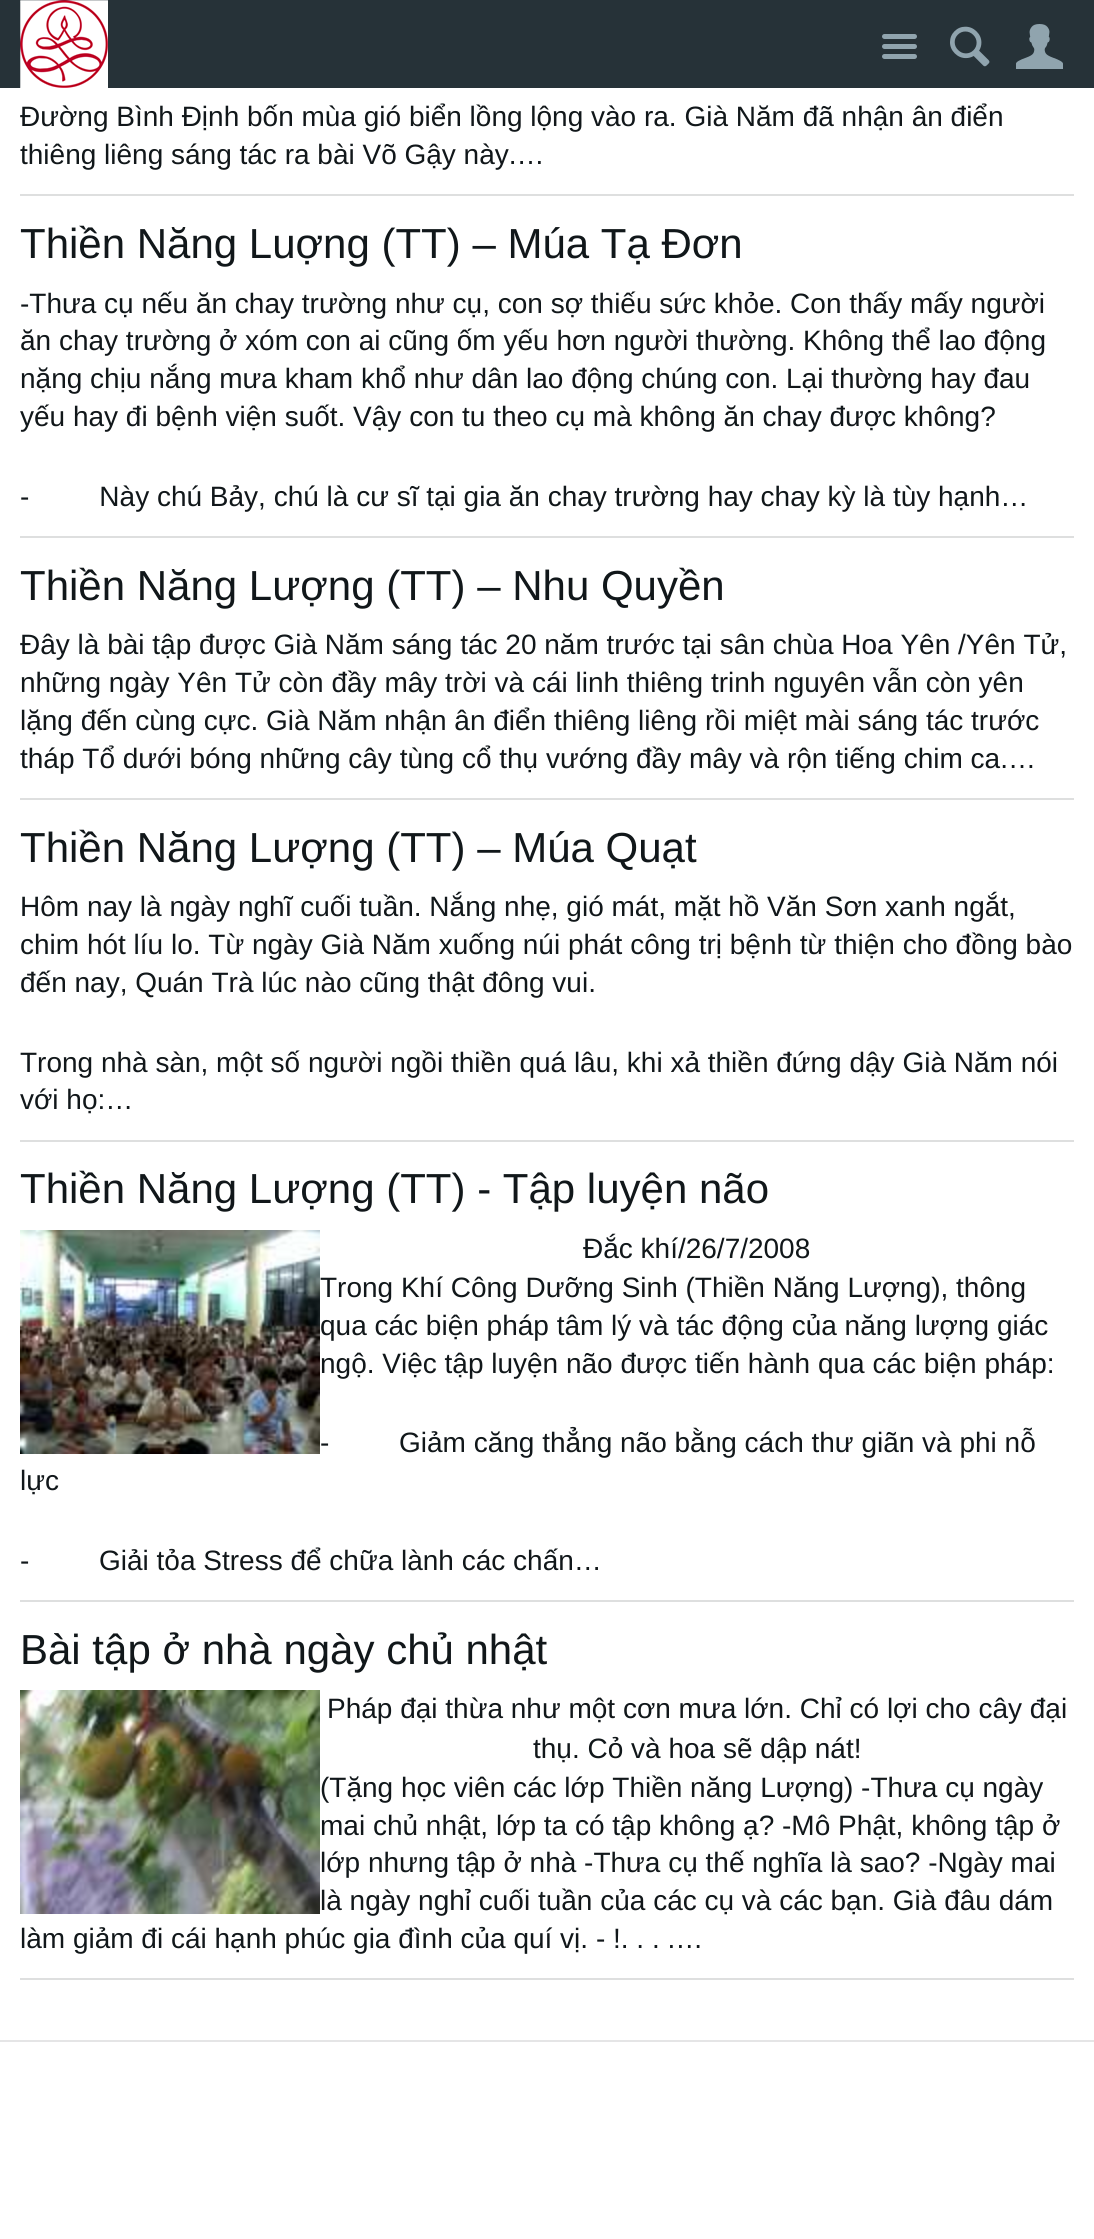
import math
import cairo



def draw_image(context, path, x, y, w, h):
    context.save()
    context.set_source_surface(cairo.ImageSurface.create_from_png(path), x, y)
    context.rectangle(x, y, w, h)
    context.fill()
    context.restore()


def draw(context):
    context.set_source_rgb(1, 1, 1)
    context.paint()
    context.set_source_rgb(38 / 255, 50 / 255, 56 / 255)
    context.rectangle(0, 0, 1094, 88)
    context.fill()
    draw_image(context, "images/1.png", 20, 0, 88, 88)
    draw_image(context, "images/2.png", 882, 34, 35, 25)
    draw_image(context, "images/3.png", 950, 26, 40, 41)
    draw_image(context, "images/4.png", 1016, 24, 47, 45)
    context.set_source_rgb(222 / 255, 223 / 255, 223 / 255)
    context.rectangle(20, 194, 1054, 2)
    context.fill()
    context.rectangle(20, 536, 1054, 2)
    context.fill()
    context.rectangle(20, 798, 1054, 2)
    context.fill()
    context.rectangle(20, 1140, 1054, 2)
    context.fill()
    context.rectangle(20, 1600, 1054, 2)
    context.fill()
    draw_image(context, "images/5.png", 20, 1230, 300, 224)
    context.rectangle(20, 1978, 1054, 2)
    context.fill()
    draw_image(context, "images/6.png", 20, 1690, 300, 224)
    context.set_source_rgb(229 / 255, 229 / 255, 230 / 255)
    context.rectangle(0, 2040, 1094, 2)
    context.fill()
    context.select_font_face("Liberation Sans")
    context.set_font_size(28)
    context.set_source_rgb(17 / 255, 23 / 255, 26 / 255)
    context.move_to(20, 126)
    context.show_text("Đường Bình Định bốn mùa gió biển lồng lộng vào ra. Già Năm đã nhận ân điển")
    context.move_to(20, 164)
    context.show_text("thiêng liêng sáng tác ra bài Võ Gậy này.…")
    context.set_font_size(42)
    context.move_to(20, 258)
    context.show_text("Thiền Năng Luợng (TT) – Múa Tạ Đơn")
    context.set_font_size(28)
    context.move_to(20, 313)
    context.show_text("-Thưa cụ nếu ăn chay trường như cụ, con sợ thiếu sức khỏe. Con thấy mấy người")
    context.move_to(20, 350)
    context.show_text("ăn chay trường ở xóm con ai cũng ốm yếu hơn người thường. Không thể lao động")
    context.move_to(20, 388)
    context.show_text("nặng chịu nắng mưa kham khổ như dân lao động chúng con. Lại thường hay đau")
    context.move_to(20, 426)
    context.show_text("yếu hay đi bệnh viện suốt. Vậy con tu theo cụ mà không ăn chay được không?")
    context.move_to(20, 506)
    context.show_text("-         Này chú Bảy, chú là cư sĩ tại gia ăn chay trường hay chay kỳ là tùy hạnh…")
    context.set_font_size(42)
    context.move_to(20, 600)
    context.show_text("Thiền Năng Lượng (TT) – Nhu Quyền")
    context.set_font_size(28)
    context.move_to(20, 654)
    context.show_text("Đây là bài tập được Già Năm sáng tác 20 năm trước tại sân chùa Hoa Yên /Yên Tử,")
    context.move_to(20, 692)
    context.show_text("những ngày Yên Tử còn đầy mây trời và cái linh thiêng trinh nguyên vẫn còn yên")
    context.move_to(20, 730)
    context.show_text("lặng đến cùng cực. Già Năm nhận ân điển thiêng liêng rồi miệt mài sáng tác trước")
    context.move_to(20, 768)
    context.show_text("tháp Tổ dưới bóng những cây tùng cổ thụ vướng đầy mây và rộn tiếng chim ca.…")
    context.set_font_size(42)
    context.move_to(20, 862)
    context.show_text("Thiền Năng Lượng (TT) – Múa Quạt")
    context.set_font_size(28)
    context.move_to(20, 916)
    context.show_text("Hôm nay là ngày nghĩ cuối tuần. Nắng nhẹ, gió mát, mặt hồ Văn Sơn xanh ngắt,")
    context.move_to(20, 954)
    context.show_text("chim hót líu lo. Từ ngày Già Năm xuống núi phát công trị bệnh từ thiện cho đồng bào")
    context.move_to(20, 992)
    context.show_text("đến nay, Quán Trà lúc nào cũng thật đông vui.")
    context.move_to(20, 1072)
    context.show_text("Trong nhà sàn, một số người ngồi thiền quá lâu, khi xả thiền đứng dậy Già Năm nói")
    context.move_to(20, 1109)
    context.show_text("với họ:…")
    context.set_font_size(42)
    context.move_to(20, 1203)
    context.show_text("Thiền Năng Lượng (TT) - Tập luyện não")
    context.set_font_size(28)
    context.move_to(583, 1258)
    context.show_text("Đắc khí/26/7/2008")
    context.move_to(320, 1297)
    context.show_text("Trong Khí Công Dưỡng Sinh (Thiền Năng Lượng), thông")
    context.move_to(320, 1335)
    context.show_text("qua các biện pháp tâm lý và tác động của năng lượng giác")
    context.move_to(320, 1373)
    context.show_text("ngộ. Việc tập luyện não được tiến hành qua các biện pháp:")
    context.move_to(320, 1452)
    context.show_text("-")
    context.move_to(399, 1452)
    context.show_text("Giảm căng thẳng não bằng cách thư giãn và phi nỗ")
    context.move_to(20, 1490)
    context.show_text("lực")
    context.move_to(20, 1570)
    context.show_text("-")
    context.move_to(99, 1570)
    context.show_text("Giải tỏa Stress để chữa lành các chấn…")
    context.set_font_size(42)
    context.move_to(20, 1664)
    context.show_text("Bài tập ở nhà ngày chủ nhật")
    context.set_font_size(28)
    context.move_to(327, 1718)
    context.show_text("Pháp đại thừa như một cơn mưa lớn. Chỉ có lợi cho cây đại")
    context.move_to(533, 1758)
    context.show_text("thụ. Cỏ và hoa sẽ dập nát!")
    context.move_to(320, 1797)
    context.show_text("(Tặng học viên các lớp Thiền năng Lượng) -Thưa cụ ngày")
    context.move_to(320, 1835)
    context.show_text("mai chủ nhật, lớp ta có tập không ạ? -Mô Phật, không tập ở")
    context.move_to(320, 1872)
    context.show_text("lớp nhưng tập ở nhà -Thưa cụ thế nghĩa là sao? -Ngày mai")
    context.move_to(320, 1910)
    context.show_text("là ngày nghỉ cuối tuần của các cụ và các bạn. Già đâu dám")
    context.move_to(20, 1948)
    context.show_text("làm giảm đi cái hạnh phúc gia đình của quí vị. - !. . . .…")


surface = cairo.ImageSurface(cairo.Format.RGB24, 1094, 2239)
context = cairo.Context(surface)
options = cairo.FontOptions()
options.set_hint_metrics(cairo.HintMetrics.OFF)
options.set_hint_style(cairo.HintStyle.NONE)
context.set_font_options(options)
context.set_miter_limit(4)
draw(context)
surface.write_to_png("out.png")
